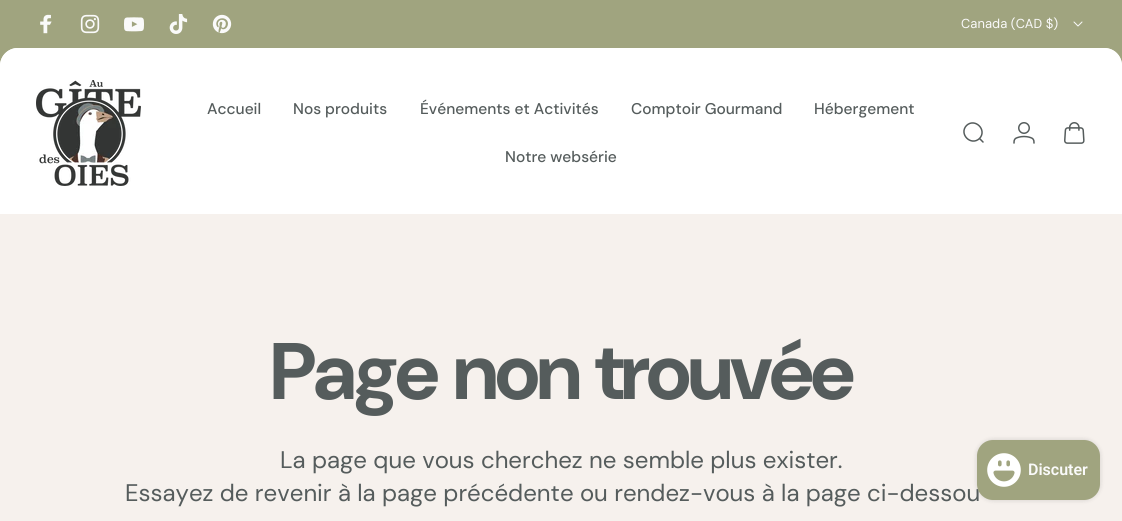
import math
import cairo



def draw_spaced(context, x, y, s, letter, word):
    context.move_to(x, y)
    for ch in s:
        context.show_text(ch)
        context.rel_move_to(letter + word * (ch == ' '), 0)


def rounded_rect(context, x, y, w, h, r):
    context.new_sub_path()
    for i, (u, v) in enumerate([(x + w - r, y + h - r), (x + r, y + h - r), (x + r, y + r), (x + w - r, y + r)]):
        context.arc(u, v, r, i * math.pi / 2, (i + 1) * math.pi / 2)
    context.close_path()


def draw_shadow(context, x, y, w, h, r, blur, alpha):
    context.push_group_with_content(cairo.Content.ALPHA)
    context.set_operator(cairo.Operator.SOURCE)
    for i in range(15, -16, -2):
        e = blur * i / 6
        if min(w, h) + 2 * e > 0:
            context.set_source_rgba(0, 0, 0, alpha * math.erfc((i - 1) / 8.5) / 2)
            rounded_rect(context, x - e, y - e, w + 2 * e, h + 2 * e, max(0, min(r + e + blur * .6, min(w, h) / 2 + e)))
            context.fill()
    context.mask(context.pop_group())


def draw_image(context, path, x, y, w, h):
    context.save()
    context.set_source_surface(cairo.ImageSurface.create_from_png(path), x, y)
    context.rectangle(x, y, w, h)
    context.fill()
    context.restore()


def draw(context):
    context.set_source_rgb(1, 1, 1)
    context.paint()
    context.set_source_rgb(160 / 255, 164 / 255, 127 / 255)
    context.rectangle(0, 0, 1122, 48)
    context.fill()
    draw_image(context, "images/1.png", 40, 14, 12, 20)
    draw_image(context, "images/2.png", 80, 14, 20, 20)
    draw_image(context, "images/3.png", 124, 17, 20, 15)
    draw_image(context, "images/4.png", 169, 14, 19, 20)
    draw_image(context, "images/5.png", 212, 14, 20, 20)
    context.new_path()
    context.move_to(1074, 22)
    context.line_to(1078, 26)
    context.line_to(1082, 22)
    context.set_source_rgb(250 / 255, 250 / 255, 250 / 255)
    context.set_line_width(1)
    context.set_line_cap(cairo.LineCap.ROUND)
    context.set_line_join(cairo.LineJoin.ROUND)
    context.stroke()
    context.set_source_rgb(160 / 255, 164 / 255, 127 / 255)
    context.set_fill_rule(cairo.FillRule.EVEN_ODD)
    context.new_path()
    context.move_to(17.5, 48)
    context.line_to(0, 48)
    context.line_to(0, 65.5)
    context.curve_to(0, 56, 8, 48, 17.5, 48)
    context.close_path()
    context.fill()
    context.new_path()
    context.move_to(1104.5, 48)
    context.line_to(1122.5, 48)
    context.line_to(1122, 65.5)
    context.curve_to(1122, 56, 1114.5, 48, 1104.5, 48)
    context.close_path()
    context.fill()
    context.set_source_rgb(1, 1, 1)
    context.new_path()
    context.move_to(18, 48)
    context.line_to(1104, 48)
    context.curve_to(1114, 48, 1122, 56, 1122, 66)
    context.line_to(1122, 214)
    context.line_to(0, 214)
    context.line_to(0, 66)
    context.curve_to(0, 56, 8, 48, 18, 48)
    context.close_path()
    context.fill()
    draw_image(context, "images/6.png", 36, 80, 105, 106)
    context.new_path()
    context.move_to(983, 142)
    context.line_to(979.5, 138.5)
    context.move_to(979.5, 138.5)
    context.curve_to(987.5, 130, 975, 117.5, 966.5, 125.5)
    context.curve_to(958.5, 134, 971, 146.5, 979.5, 138.5)
    context.close_path()
    context.set_source_rgb(85 / 255, 92 / 255, 92 / 255)
    context.set_line_width(1.5)
    context.set_line_join(cairo.LineJoin.MITER)
    context.stroke()
    draw_image(context, "images/7.png", 1013, 122, 22, 22)
    draw_image(context, "images/8.png", 1064, 122, 21, 22)
    context.set_source_rgb(246 / 255, 241 / 255, 237 / 255)
    context.rectangle(0, 214, 1122, 307)
    context.fill()
    context.set_source_rgb(0, 0, 0)
    draw_shadow(context, 977, 440, 123, 60, 16, 2.5, 0.15)
    context.select_font_face("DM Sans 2")
    context.set_font_size(13)
    context.set_source_rgb(250 / 255, 250 / 255, 250 / 255)
    context.move_to(961, 28)
    context.show_text("Canada (CAD $)")
    context.select_font_face("DM Sans Medium")
    context.set_font_size(15.5)
    context.set_source_rgb(85 / 255, 92 / 255, 92 / 255)
    context.move_to(207, 114)
    context.show_text("Accueil")
    context.move_to(293, 114)
    context.show_text("Nos produits")
    context.move_to(420, 114)
    context.show_text("Événements et Activités")
    context.move_to(631, 114)
    context.show_text("Comptoir Gourmand")
    context.move_to(814, 114)
    context.show_text("Hébergement")
    context.move_to(505, 162)
    context.show_text("Notre websérie")
    context.select_font_face("DM Sans", cairo.FontSlant.NORMAL, cairo.FontWeight.BOLD)
    context.set_font_size(80)
    draw_spaced(context, 270, 399, "Page", -3.25, 0)
    draw_spaced(context, 453, 399, "non", -3.25, 0)
    draw_spaced(context, 595, 399, "trouvée", -3.25, 0)
    context.select_font_face("DM Sans")
    context.set_font_size(24)
    context.move_to(280, 468)
    context.show_text("La page que vous cherchez ne semble plus exister.")
    context.move_to(125, 501)
    context.show_text("Essayez de revenir à la page précédente ou rendez-vous à la page ci-dessou")
    context.set_source_rgb(160 / 255, 164 / 255, 127 / 255)
    rounded_rect(context, 977, 440, 123, 60, 16)
    context.fill()
    draw_image(context, "images/9.png", 987, 453, 34, 34)
    context.select_font_face("Roboto SemiBold")
    context.set_font_size(16)
    context.set_source_rgb(250 / 255, 250 / 255, 250 / 255)
    context.move_to(1028, 475)
    context.show_text("Discuter")


surface = cairo.ImageSurface(cairo.Format.RGB24, 1122, 521)
context = cairo.Context(surface)
options = cairo.FontOptions()
options.set_hint_metrics(cairo.HintMetrics.OFF)
options.set_hint_style(cairo.HintStyle.NONE)
context.set_font_options(options)
context.set_miter_limit(4)
draw(context)
surface.write_to_png("out.png")
